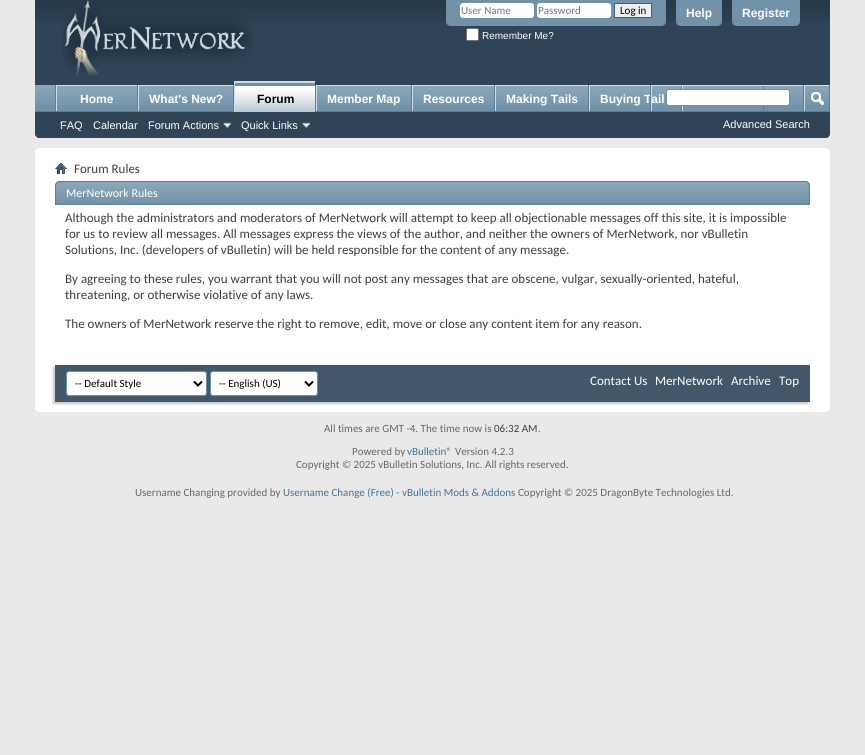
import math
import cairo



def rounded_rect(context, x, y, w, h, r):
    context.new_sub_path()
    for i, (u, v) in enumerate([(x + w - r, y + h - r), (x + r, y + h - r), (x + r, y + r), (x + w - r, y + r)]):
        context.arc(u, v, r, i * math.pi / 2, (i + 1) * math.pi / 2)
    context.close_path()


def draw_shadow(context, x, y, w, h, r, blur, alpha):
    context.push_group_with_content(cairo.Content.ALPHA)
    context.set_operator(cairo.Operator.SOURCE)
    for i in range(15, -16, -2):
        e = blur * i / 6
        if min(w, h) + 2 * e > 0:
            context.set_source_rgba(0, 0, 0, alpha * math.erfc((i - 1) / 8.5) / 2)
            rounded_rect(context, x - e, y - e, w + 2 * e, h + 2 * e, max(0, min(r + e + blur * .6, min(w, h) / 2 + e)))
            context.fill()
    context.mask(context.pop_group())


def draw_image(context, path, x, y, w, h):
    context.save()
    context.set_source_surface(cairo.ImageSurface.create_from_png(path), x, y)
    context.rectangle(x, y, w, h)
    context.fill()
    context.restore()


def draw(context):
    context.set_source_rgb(233 / 255, 233 / 255, 233 / 255)
    context.paint()
    context.set_source_rgb(47 / 255, 68 / 255, 86 / 255)
    context.new_path()
    context.move_to(35, 0)
    context.line_to(830, 0)
    context.line_to(830, 133)
    context.curve_to(830, 136, 828, 138, 825, 138)
    context.line_to(40, 138)
    context.curve_to(37, 138, 35, 136, 35, 133)
    context.close_path()
    context.fill()
    draw_image(context, "images/1.png", 35, 0, 795, 22)
    draw_image(context, "images/2.png", 62, 0, 191, 75)
    context.set_source_rgb(113 / 255, 146 / 255, 168 / 255)
    context.new_path()
    context.move_to(446, 0)
    context.line_to(666, 0)
    context.line_to(666, 21)
    context.curve_to(666, 24, 664, 26, 661, 26)
    context.line_to(451, 26)
    context.curve_to(448, 26, 446, 24, 446, 21)
    context.close_path()
    context.fill()
    context.set_source_rgb(1, 1, 1)
    rounded_rect(context, 460, 3, 74, 15, 3)
    context.fill()
    rounded_rect(context, 537, 3, 74, 15, 3)
    context.fill()
    context.set_source_rgb(239 / 255, 239 / 255, 239 / 255)
    context.rectangle(614.5, 3.5, 37, 14)
    context.fill_preserve()
    context.set_source_rgb(65 / 255, 93 / 255, 141 / 255)
    context.set_line_width(1)
    context.stroke()
    context.set_source_rgb(1, 1, 1)
    rounded_rect(context, 466.5, 28.5, 12, 12, 1.5)
    context.fill_preserve()
    context.set_source_rgb(118 / 255, 118 / 255, 118 / 255)
    context.stroke()
    context.set_source_rgb(113 / 255, 146 / 255, 168 / 255)
    context.new_path()
    context.move_to(676, 0)
    context.line_to(722, 0)
    context.line_to(722, 21)
    context.curve_to(722, 24, 720, 26, 717, 26)
    context.line_to(681, 26)
    context.curve_to(678, 26, 676, 24, 676, 21)
    context.close_path()
    context.fill()
    context.new_path()
    context.move_to(732, 0)
    context.line_to(800, 0)
    context.line_to(800, 21)
    context.curve_to(800, 24, 798, 26, 795, 26)
    context.line_to(737, 26)
    context.curve_to(734, 26, 732, 24, 732, 21)
    context.close_path()
    context.fill()
    context.set_source_rgb(47 / 255, 68 / 255, 86 / 255)
    context.new_path()
    context.move_to(35, 85)
    context.line_to(830, 85)
    context.line_to(830, 133)
    context.curve_to(830, 136, 828, 138, 825, 138)
    context.line_to(40, 138)
    context.curve_to(37, 138, 35, 136, 35, 133)
    context.close_path()
    context.fill()
    context.set_source_rgb(113 / 255, 146 / 255, 168 / 255)
    context.rectangle(35, 85, 794, 26)
    context.fill()
    draw_image(context, "images/3.png", 35, 85, 794, 20)
    context.set_source_rgb(90 / 255, 127 / 255, 151 / 255)
    context.rectangle(137, 85, 1, 27)
    context.fill()
    context.rectangle(55, 85, 1, 27)
    context.fill()
    context.set_source_rgb(113 / 255, 146 / 255, 168 / 255)
    context.rectangle(57, 86, 80, 19)
    context.fill()
    draw_image(context, "images/4.png", 57, 86, 80, 20)
    context.set_source_rgb(206 / 255, 223 / 255, 235 / 255)
    context.rectangle(56, 85, 81, 1)
    context.fill()
    context.rectangle(56, 85, 1, 27)
    context.fill()
    context.set_source_rgb(90 / 255, 127 / 255, 151 / 255)
    context.rectangle(233, 85, 1, 27)
    context.fill()
    context.set_source_rgb(113 / 255, 146 / 255, 168 / 255)
    context.rectangle(139, 86, 94, 19)
    context.fill()
    draw_image(context, "images/5.png", 139, 86, 94, 20)
    context.set_source_rgb(206 / 255, 223 / 255, 235 / 255)
    context.rectangle(138, 85, 95, 1)
    context.fill()
    context.rectangle(138, 85, 1, 27)
    context.fill()
    context.set_source_rgb(90 / 255, 127 / 255, 151 / 255)
    context.rectangle(315, 85, 1, 26)
    context.fill()
    context.rectangle(411, 85, 1, 27)
    context.fill()
    context.set_source_rgb(206 / 255, 223 / 255, 235 / 255)
    context.rectangle(316, 85, 95, 1)
    context.fill()
    context.rectangle(316, 85, 1, 27)
    context.fill()
    context.set_source_rgb(90 / 255, 127 / 255, 151 / 255)
    context.rectangle(494, 85, 1, 27)
    context.fill()
    context.set_source_rgb(206 / 255, 223 / 255, 235 / 255)
    context.rectangle(412, 85, 82, 1)
    context.fill()
    context.rectangle(412, 85, 1, 27)
    context.fill()
    context.set_source_rgb(90 / 255, 127 / 255, 151 / 255)
    context.rectangle(588, 85, 1, 27)
    context.fill()
    context.set_source_rgb(206 / 255, 223 / 255, 235 / 255)
    context.rectangle(495, 85, 93, 1)
    context.fill()
    context.rectangle(495, 85, 1, 27)
    context.fill()
    context.set_source_rgb(90 / 255, 127 / 255, 151 / 255)
    context.rectangle(681, 85, 1, 27)
    context.fill()
    context.set_source_rgb(206 / 255, 223 / 255, 235 / 255)
    context.rectangle(589, 85, 61, 1)
    context.fill()
    context.rectangle(589, 85, 1, 27)
    context.fill()
    context.set_source_rgb(90 / 255, 127 / 255, 151 / 255)
    context.rectangle(763, 85, 1, 27)
    context.fill()
    context.set_source_rgb(206 / 255, 223 / 255, 235 / 255)
    context.rectangle(682, 85, 1, 27)
    context.fill()
    context.set_source_rgb(90 / 255, 127 / 255, 151 / 255)
    context.rectangle(35, 111, 795, 1)
    context.fill()
    context.set_source_rgb(113 / 255, 146 / 255, 168 / 255)
    context.rectangle(235, 82, 80, 30)
    context.fill()
    draw_image(context, "images/6.png", 235, 82, 80, 30)
    context.set_source_rgb(206 / 255, 223 / 255, 235 / 255)
    context.rectangle(234, 81, 81, 1)
    context.fill()
    context.rectangle(234, 81, 1, 31)
    context.fill()
    context.set_source_rgb(113 / 255, 146 / 255, 168 / 255)
    context.rectangle(317, 86, 94, 19)
    context.fill()
    draw_image(context, "images/5.png", 317, 86, 94, 20)
    context.rectangle(413, 86, 81, 19)
    context.fill()
    draw_image(context, "images/7.png", 413, 86, 81, 20)
    context.rectangle(496, 86, 92, 19)
    context.fill()
    draw_image(context, "images/8.png", 496, 86, 92, 20)
    context.rectangle(590, 86, 91, 19)
    context.fill()
    draw_image(context, "images/9.png", 590, 86, 91, 20)
    context.rectangle(683, 86, 80, 19)
    context.fill()
    draw_image(context, "images/10.png", 683, 86, 80, 3)
    draw_image(context, "images/11.png", 223, 122, 9, 6)
    draw_image(context, "images/11.png", 302, 122, 9, 6)
    context.set_source_rgb(206 / 255, 223 / 255, 235 / 255)
    context.rectangle(651, 85, 152, 1)
    context.fill()
    context.set_source_rgb(1, 1, 1)
    rounded_rect(context, 666.5, 89.5, 123, 16, 2.5)
    context.fill_preserve()
    context.set_source_rgb(107 / 255, 145 / 255, 171 / 255)
    context.stroke()
    context.set_source_rgb(90 / 255, 127 / 255, 151 / 255)
    context.rectangle(829, 85, 1, 26)
    context.fill()
    context.rectangle(803, 85, 1, 26)
    context.fill()
    context.set_source_rgb(206 / 255, 223 / 255, 235 / 255)
    context.rectangle(804, 85, 25, 1)
    context.fill()
    context.rectangle(804, 85, 1, 26)
    context.fill()
    draw_image(context, "images/12.png", 811, 92, 13, 14)
    context.set_source_rgb(1, 1, 1)
    rounded_rect(context, 35, 148, 795, 264, 5)
    context.fill()
    draw_image(context, "images/13.png", 55, 163, 12, 11)
    context.set_source_rgb(113 / 255, 146 / 255, 168 / 255)
    context.new_path()
    context.move_to(60, 181)
    context.line_to(805, 181)
    context.curve_to(808, 181, 810, 183, 810, 186)
    context.line_to(810, 205)
    context.line_to(55, 205)
    context.line_to(55, 186)
    context.curve_to(55, 183, 57, 181, 60, 181)
    context.close_path()
    context.fill()
    draw_image(context, "images/14.png", 55, 182, 755, 20)
    context.new_path()
    context.move_to(60, 181.5)
    context.line_to(805, 181.5)
    context.curve_to(807.5, 181.5, 809.5, 183.5, 809.5, 186)
    context.line_to(809.5, 204.5)
    context.line_to(55.5, 204.5)
    context.line_to(55.5, 186)
    context.curve_to(55.5, 183.5, 57.5, 181.5, 60, 181.5)
    context.close_path()
    context.set_source_rgb(90 / 255, 127 / 255, 151 / 255)
    context.stroke()
    context.set_source_rgb(200 / 255, 200 / 255, 200 / 255)
    draw_shadow(context, 53, 367, 755, 37, 0, 1, 1)
    context.set_source_rgb(66 / 255, 87 / 255, 105 / 255)
    context.rectangle(55, 365, 755, 37)
    context.fill()
    context.set_source_rgb(1, 1, 1)
    rounded_rect(context, 66.5, 371.5, 140, 24, 2.5)
    context.fill_preserve()
    context.set_source_rgb(107 / 255, 145 / 255, 171 / 255)
    context.stroke()
    context.new_path()
    context.move_to(194, 381.5)
    context.line_to(198, 385.5)
    context.line_to(202, 381.5)
    context.set_source_rgb(0, 0, 0)
    context.set_line_width(2)
    context.stroke()
    context.set_source_rgb(1, 1, 1)
    rounded_rect(context, 210.5, 371.5, 107, 24, 2.5)
    context.fill_preserve()
    context.set_source_rgb(107 / 255, 145 / 255, 171 / 255)
    context.set_line_width(1)
    context.stroke()
    context.new_path()
    context.move_to(305, 381.5)
    context.line_to(309, 385.5)
    context.line_to(313, 381.5)
    context.set_source_rgb(0, 0, 0)
    context.set_line_width(2)
    context.stroke()
    context.select_font_face("Carlito")
    context.set_font_size(11)
    context.set_source_rgb(119 / 255, 119 / 255, 119 / 255)
    context.move_to(461, 14)
    context.show_text("User Name")
    context.move_to(538, 14)
    context.show_text("Password")
    context.set_source_rgb(0, 0, 0)
    context.move_to(620, 14)
    context.show_text("Log in")
    context.select_font_face("Liberation Sans")
    context.set_font_size(10)
    context.set_source_rgb(1, 1, 1)
    context.move_to(482, 39)
    context.show_text("Remember Me?")
    context.select_font_face("Liberation Sans", cairo.FontSlant.NORMAL, cairo.FontWeight.BOLD)
    context.set_font_size(12)
    context.move_to(686, 17)
    context.show_text("Help")
    context.move_to(742, 17)
    context.show_text("Register")
    context.move_to(80, 103)
    context.show_text("Home")
    context.move_to(149, 103)
    context.show_text("What's New?")
    context.set_source_rgb(0, 0, 0)
    context.move_to(257, 103)
    context.show_text("Forum")
    context.set_source_rgb(1, 1, 1)
    context.move_to(327, 103)
    context.show_text("Member Map")
    context.move_to(423, 103)
    context.show_text("Resources")
    context.move_to(506, 103)
    context.show_text("Making Tails")
    context.move_to(600, 103)
    context.show_text("Buying Tail")
    context.select_font_face("Liberation Sans")
    context.set_font_size(11)
    context.move_to(60, 129)
    context.show_text("FAQ")
    context.move_to(93, 129)
    context.show_text("Calendar")
    context.move_to(148, 129)
    context.show_text("Forum Actions")
    context.move_to(241, 129)
    context.show_text("Quick Links")
    context.set_source_rgb(90 / 255, 127 / 255, 151 / 255)
    context.rectangle(650, 85, 1, 26)
    context.fill()
    context.set_source_rgb(206 / 255, 223 / 255, 235 / 255)
    context.rectangle(651, 85, 1, 26)
    context.fill()
    context.set_source_rgb(1, 1, 1)
    context.move_to(723, 128)
    context.show_text("Advanced Search")
    context.select_font_face("Carlito")
    context.set_font_size(13)
    context.set_source_rgb(62 / 255, 62 / 255, 62 / 255)
    context.move_to(74, 173)
    context.show_text("Forum Rules")
    context.set_font_size(12)
    context.set_source_rgb(1, 1, 1)
    context.move_to(66, 197)
    context.show_text("MerNetwork Rules")
    context.set_font_size(13)
    context.set_source_rgb(62 / 255, 62 / 255, 62 / 255)
    context.move_to(65, 222)
    context.show_text("Although the administrators and moderators of MerNetwork will attempt to keep all objectionable messages off this site, it is impossible")
    context.move_to(65, 238)
    context.show_text("for us to review all messages. All messages express the views of the author, and neither the owners of MerNetwork, nor vBulletin")
    context.move_to(65, 254)
    context.show_text("Solutions, Inc. (developers of vBulletin) will be held responsible for the content of any message.")
    context.move_to(65, 283)
    context.show_text("By agreeing to these rules, you warrant that you will not post any messages that are obscene, vulgar, sexually-oriented, hateful,")
    context.move_to(65, 299)
    context.show_text("threatening, or otherwise violative of any laws.")
    context.move_to(65, 328)
    context.show_text("The owners of MerNetwork reserve the right to remove, edit, move or close any content item for any reason.")
    context.set_font_size(11)
    context.set_source_rgb(0, 0, 0)
    context.move_to(75, 387)
    context.show_text("-- Default Style")
    context.move_to(219, 387)
    context.show_text("-- English (US)")
    context.set_font_size(13)
    context.set_source_rgb(1, 1, 1)
    context.move_to(590, 385)
    context.show_text("Contact Us")
    context.move_to(655, 385)
    context.show_text("MerNetwork")
    context.move_to(731, 385)
    context.show_text("Archive")
    context.move_to(779, 385)
    context.show_text("Top")
    context.set_font_size(11)
    context.set_source_rgb(102 / 255, 102 / 255, 102 / 255)
    context.move_to(324, 432)
    context.show_text("All times are GMT -4. The time now is")
    context.set_source_rgb(62 / 255, 62 / 255, 62 / 255)
    context.move_to(494, 432)
    context.show_text("06:32 AM")
    context.set_source_rgb(102 / 255, 102 / 255, 102 / 255)
    context.move_to(538, 432)
    context.show_text(".")
    context.move_to(352, 455)
    context.show_text("Powered by")
    context.set_source_rgb(65 / 255, 115 / 255, 148 / 255)
    context.move_to(407, 455)
    context.show_text("vBulletin®")
    context.set_source_rgb(102 / 255, 102 / 255, 102 / 255)
    context.move_to(455, 455)
    context.show_text("Version 4.2.3")
    context.move_to(296, 468)
    context.show_text("Copyright © 2025 vBulletin Solutions, Inc. All rights reserved.")
    context.move_to(135, 496)
    context.show_text("Username Changing provided by")
    context.set_source_rgb(65 / 255, 115 / 255, 148 / 255)
    context.move_to(283, 496)
    context.show_text("Username Change (Free)")
    context.set_source_rgb(102 / 255, 102 / 255, 102 / 255)
    context.move_to(396, 496)
    context.show_text("-")
    context.set_source_rgb(65 / 255, 115 / 255, 148 / 255)
    context.move_to(402, 496)
    context.show_text("vBulletin Mods & Addons")
    context.set_source_rgb(102 / 255, 102 / 255, 102 / 255)
    context.move_to(518, 496)
    context.show_text("Copyright © 2025 DragonByte Technologies Ltd.")


surface = cairo.ImageSurface(cairo.Format.RGB24, 865, 755)
context = cairo.Context(surface)
options = cairo.FontOptions()
options.set_hint_metrics(cairo.HintMetrics.OFF)
options.set_hint_style(cairo.HintStyle.NONE)
context.set_font_options(options)
context.set_miter_limit(4)
draw(context)
surface.write_to_png("out.png")
